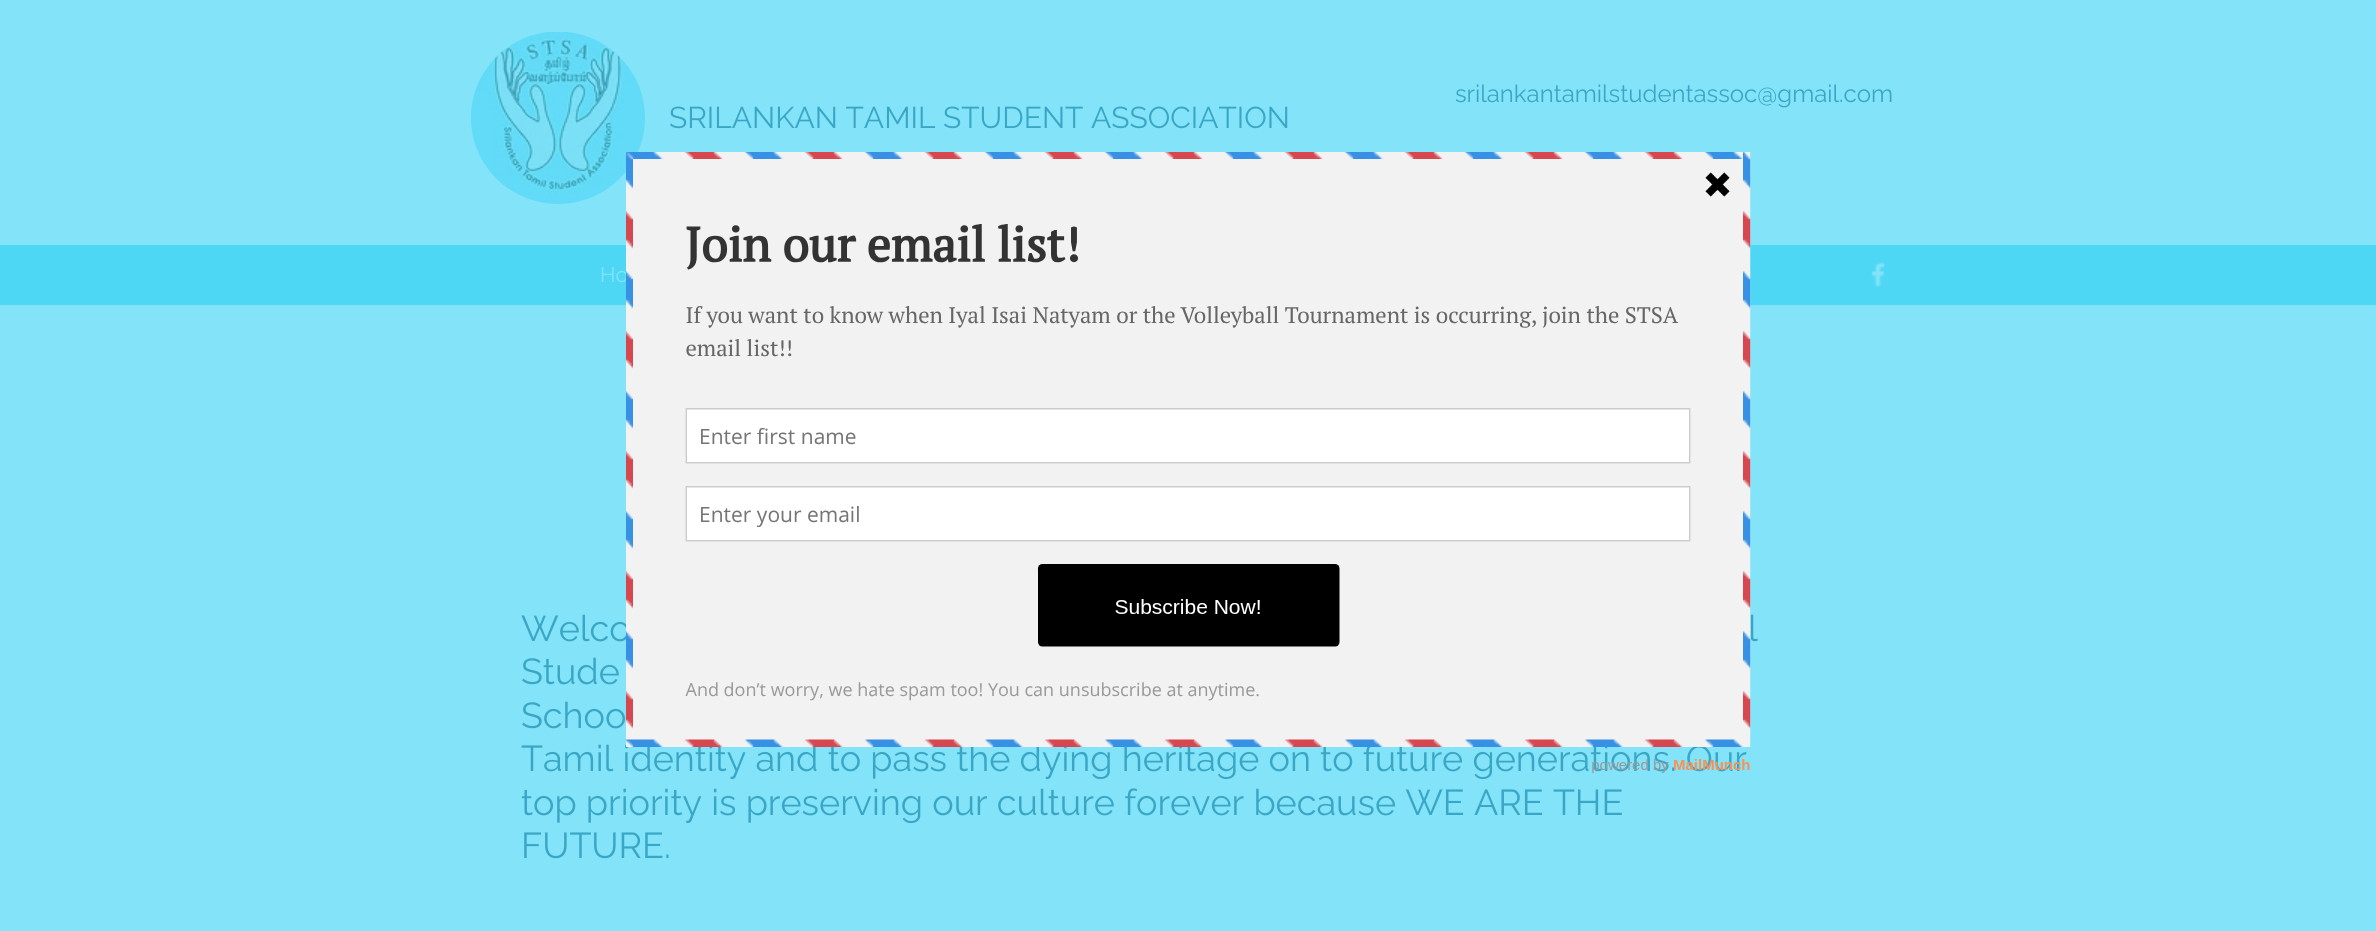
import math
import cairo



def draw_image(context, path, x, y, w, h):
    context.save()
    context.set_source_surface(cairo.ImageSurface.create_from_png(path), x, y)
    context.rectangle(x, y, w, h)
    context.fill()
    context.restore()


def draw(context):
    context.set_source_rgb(131 / 255, 227 / 255, 248 / 255)
    context.paint()
    draw_image(context, "images/1.png", 471, 32, 174, 172)
    context.set_source_rgb(78 / 255, 215 / 255, 245 / 255)
    context.rectangle(0, 245, 2376, 60)
    context.fill()
    draw_image(context, "images/2.png", 1871, 262, 14, 25)
    context.select_font_face("Raleway")
    context.set_font_size(24)
    context.set_source_rgb(58 / 255, 166 / 255, 198 / 255)
    context.move_to(1455, 102)
    context.show_text("srilankantamilstudentassoc@gmail.com")
    context.set_font_size(30)
    context.move_to(669, 128)
    context.show_text("SRILANKAN TAMIL STUDENT ASSOCIATION")
    context.set_font_size(21)
    context.set_source_rgb(131 / 255, 227 / 255, 248 / 255)
    context.move_to(600, 282)
    context.show_text("Ho")
    context.set_font_size(36)
    context.set_source_rgb(58 / 255, 166 / 255, 198 / 255)
    context.move_to(521, 641)
    context.show_text("Welco")
    context.move_to(1748, 641)
    context.show_text("l")
    context.move_to(521, 684)
    context.show_text("Stude")
    context.move_to(521, 728)
    context.show_text("Schoo")
    context.move_to(521, 771)
    context.show_text("Tamil identity and to pass the dying heritage on to future generations. Our")
    context.move_to(521, 815)
    context.show_text("top priority is preserving our culture forever because WE ARE THE")
    context.move_to(521, 858)
    context.show_text("FUTURE.")
    draw_image(context, "images/3.png", 626, 152, 1125, 621)


surface = cairo.ImageSurface(cairo.Format.RGB24, 2376, 931)
context = cairo.Context(surface)
options = cairo.FontOptions()
options.set_hint_metrics(cairo.HintMetrics.OFF)
options.set_hint_style(cairo.HintStyle.NONE)
context.set_font_options(options)
context.set_miter_limit(4)
draw(context)
surface.write_to_png("out.png")
